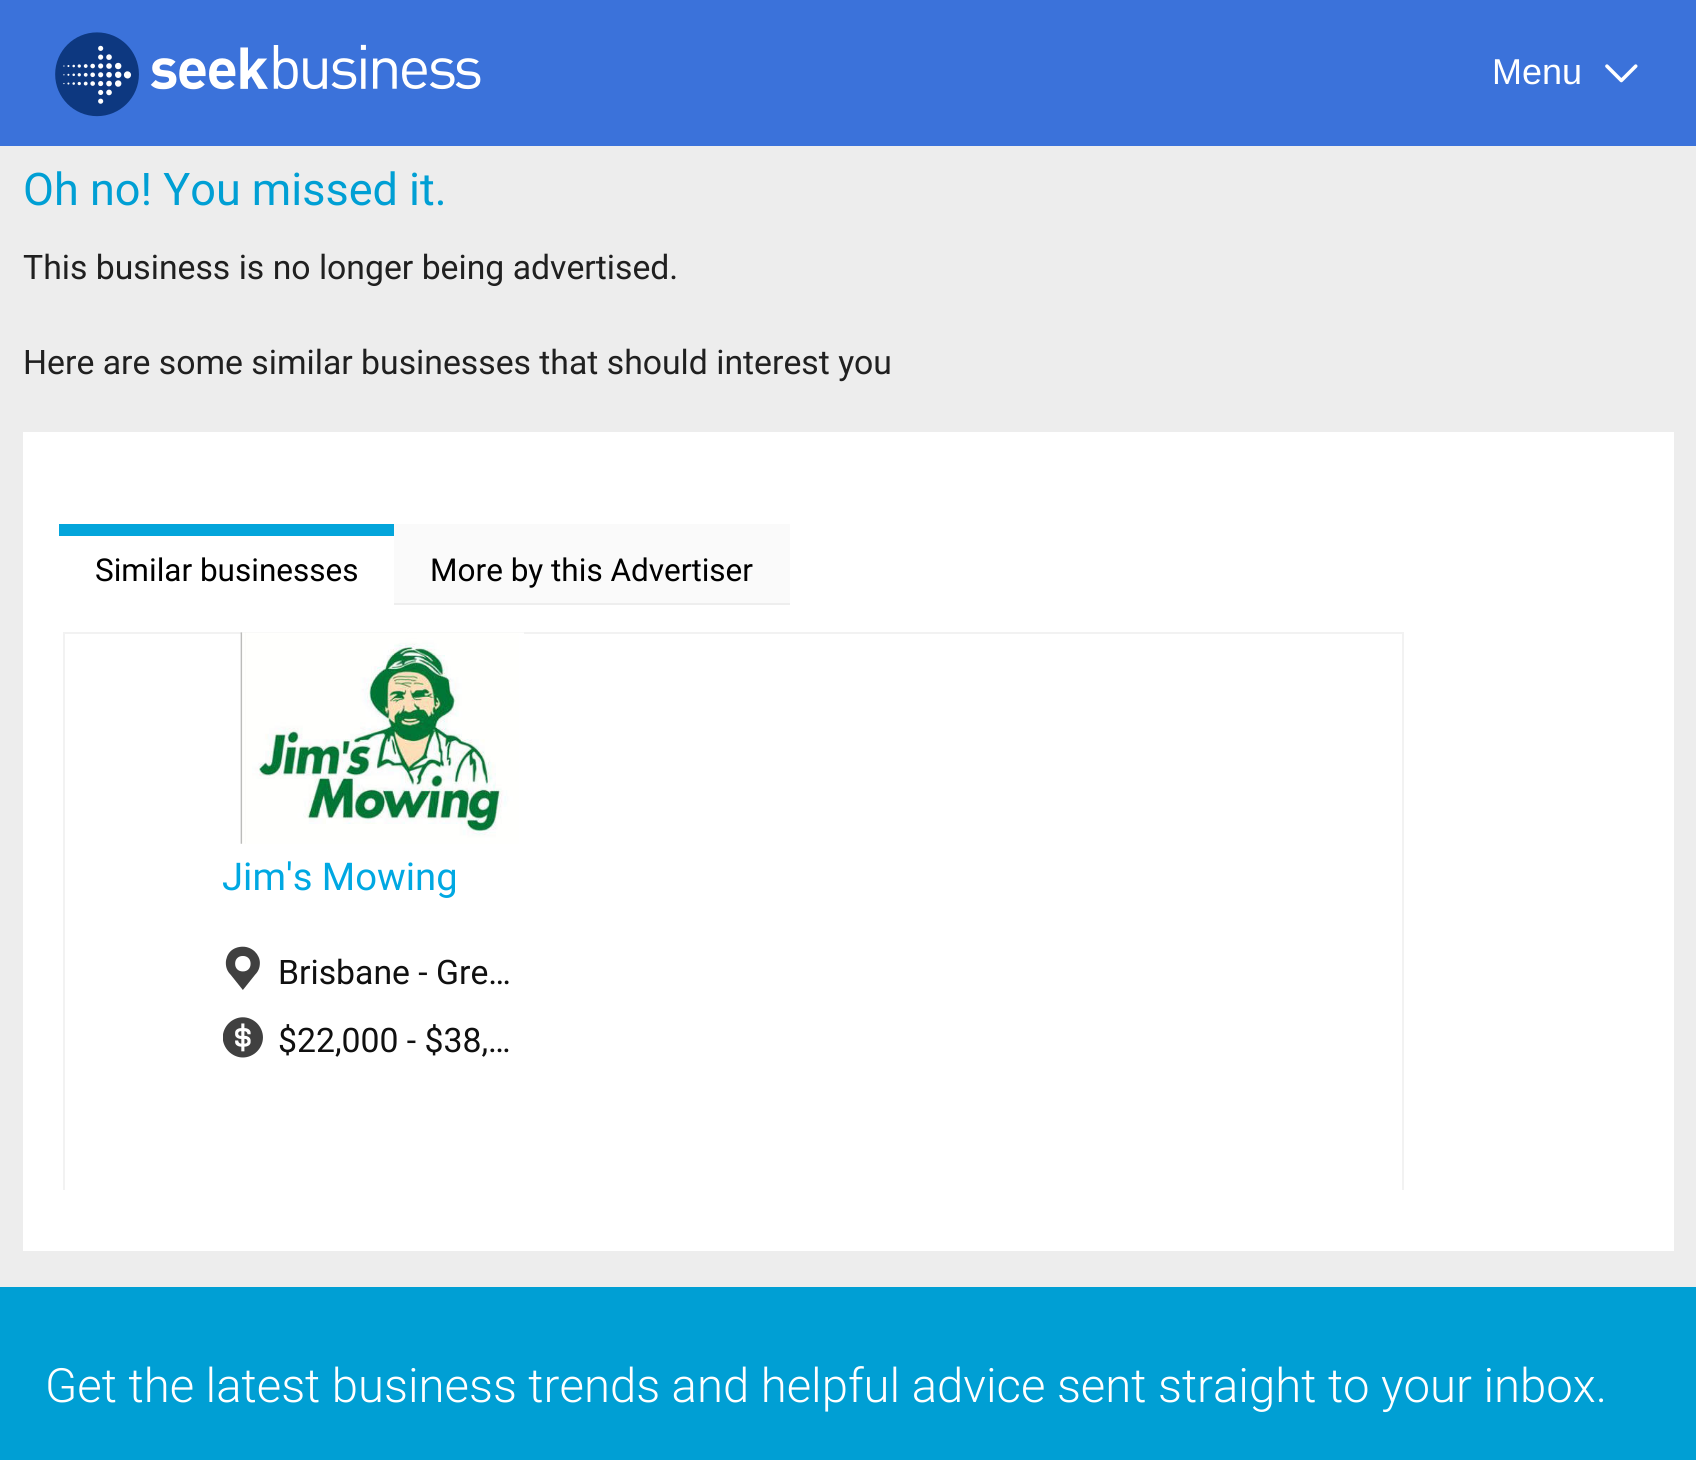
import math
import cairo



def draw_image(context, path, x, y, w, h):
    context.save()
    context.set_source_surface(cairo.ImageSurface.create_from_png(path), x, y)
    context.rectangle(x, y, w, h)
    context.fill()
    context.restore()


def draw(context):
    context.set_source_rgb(237 / 255, 237 / 255, 237 / 255)
    context.paint()
    context.set_source_rgb(59 / 255, 114 / 255, 218 / 255)
    context.rectangle(0, 0, 1696, 146)
    context.fill()
    draw_image(context, "images/1.png", 55, 32, 426, 85)
    draw_image(context, "images/2.png", 1605, 64, 33, 19)
    context.set_source_rgb(1, 1, 1)
    context.rectangle(23, 432, 1651, 819)
    context.fill()
    context.set_source_rgb(4 / 255, 165 / 255, 219 / 255)
    context.rectangle(59, 524, 335, 12)
    context.fill()
    context.set_source_rgb(250 / 255, 250 / 255, 250 / 255)
    context.rectangle(394, 524, 396, 79)
    context.fill()
    context.set_source_rgb(238 / 255, 238 / 255, 238 / 255)
    context.rectangle(394, 603, 396, 2)
    context.fill()
    context.save()
    context.rectangle(59, 628, 1350, 562)
    context.clip()
    context.rectangle(64, 633, 1339, 590)
    context.set_source_rgb(242 / 255, 242 / 255, 242 / 255)
    context.stroke()
    context.restore()
    draw_image(context, "images/3.png", 240, 632, 284, 212)
    draw_image(context, "images/4.png", 225, 946, 35, 44)
    draw_image(context, "images/5.png", 223, 1017, 40, 41)
    context.set_source_rgb(0, 159 / 255, 212 / 255)
    context.rectangle(0, 1287, 1696, 173)
    context.fill()
    context.select_font_face("Liberation Sans")
    context.set_font_size(36)
    context.set_source_rgb(1, 1, 1)
    context.move_to(1492, 84)
    context.show_text("Menu")
    context.select_font_face("Roboto")
    context.set_font_size(45)
    context.set_source_rgb(0, 159 / 255, 212 / 255)
    context.move_to(23, 205)
    context.show_text("Oh no! You missed it.")
    context.set_font_size(33.75)
    context.set_source_rgb(32 / 255, 32 / 255, 32 / 255)
    context.move_to(23, 279)
    context.show_text("This business is no longer being advertised.")
    context.move_to(23, 374)
    context.show_text("Here are some similar businesses that should interest you")
    context.set_font_size(31.5)
    context.set_source_rgb(0, 0, 0)
    context.move_to(95, 581)
    context.show_text("Similar businesses")
    context.move_to(430, 581)
    context.show_text("More by this Advertiser")
    context.save()
    context.rectangle(223, 851, 322, 90)
    context.clip()
    context.set_font_size(38.25)
    context.set_source_rgb(0, 168 / 255, 226 / 255)
    context.move_to(222, 890)
    context.show_text("Jim's Mowing")
    context.restore()
    context.set_font_size(33.75)
    context.set_source_rgb(16 / 255, 16 / 255, 16 / 255)
    context.move_to(278, 984)
    context.show_text("Brisbane - Gre…")
    context.move_to(278, 1052)
    context.show_text("$22,000 - $38,…")
    context.select_font_face("Roboto Light")
    context.set_font_size(47.25)
    context.set_source_rgb(1, 1, 1)
    context.move_to(45, 1402)
    context.show_text("Get the latest business trends and helpful advice sent straight to your inbox.")


surface = cairo.ImageSurface(cairo.Format.RGB24, 1696, 1460)
context = cairo.Context(surface)
options = cairo.FontOptions()
options.set_hint_metrics(cairo.HintMetrics.OFF)
options.set_hint_style(cairo.HintStyle.NONE)
context.set_font_options(options)
context.set_miter_limit(4)
draw(context)
surface.write_to_png("out.png")
